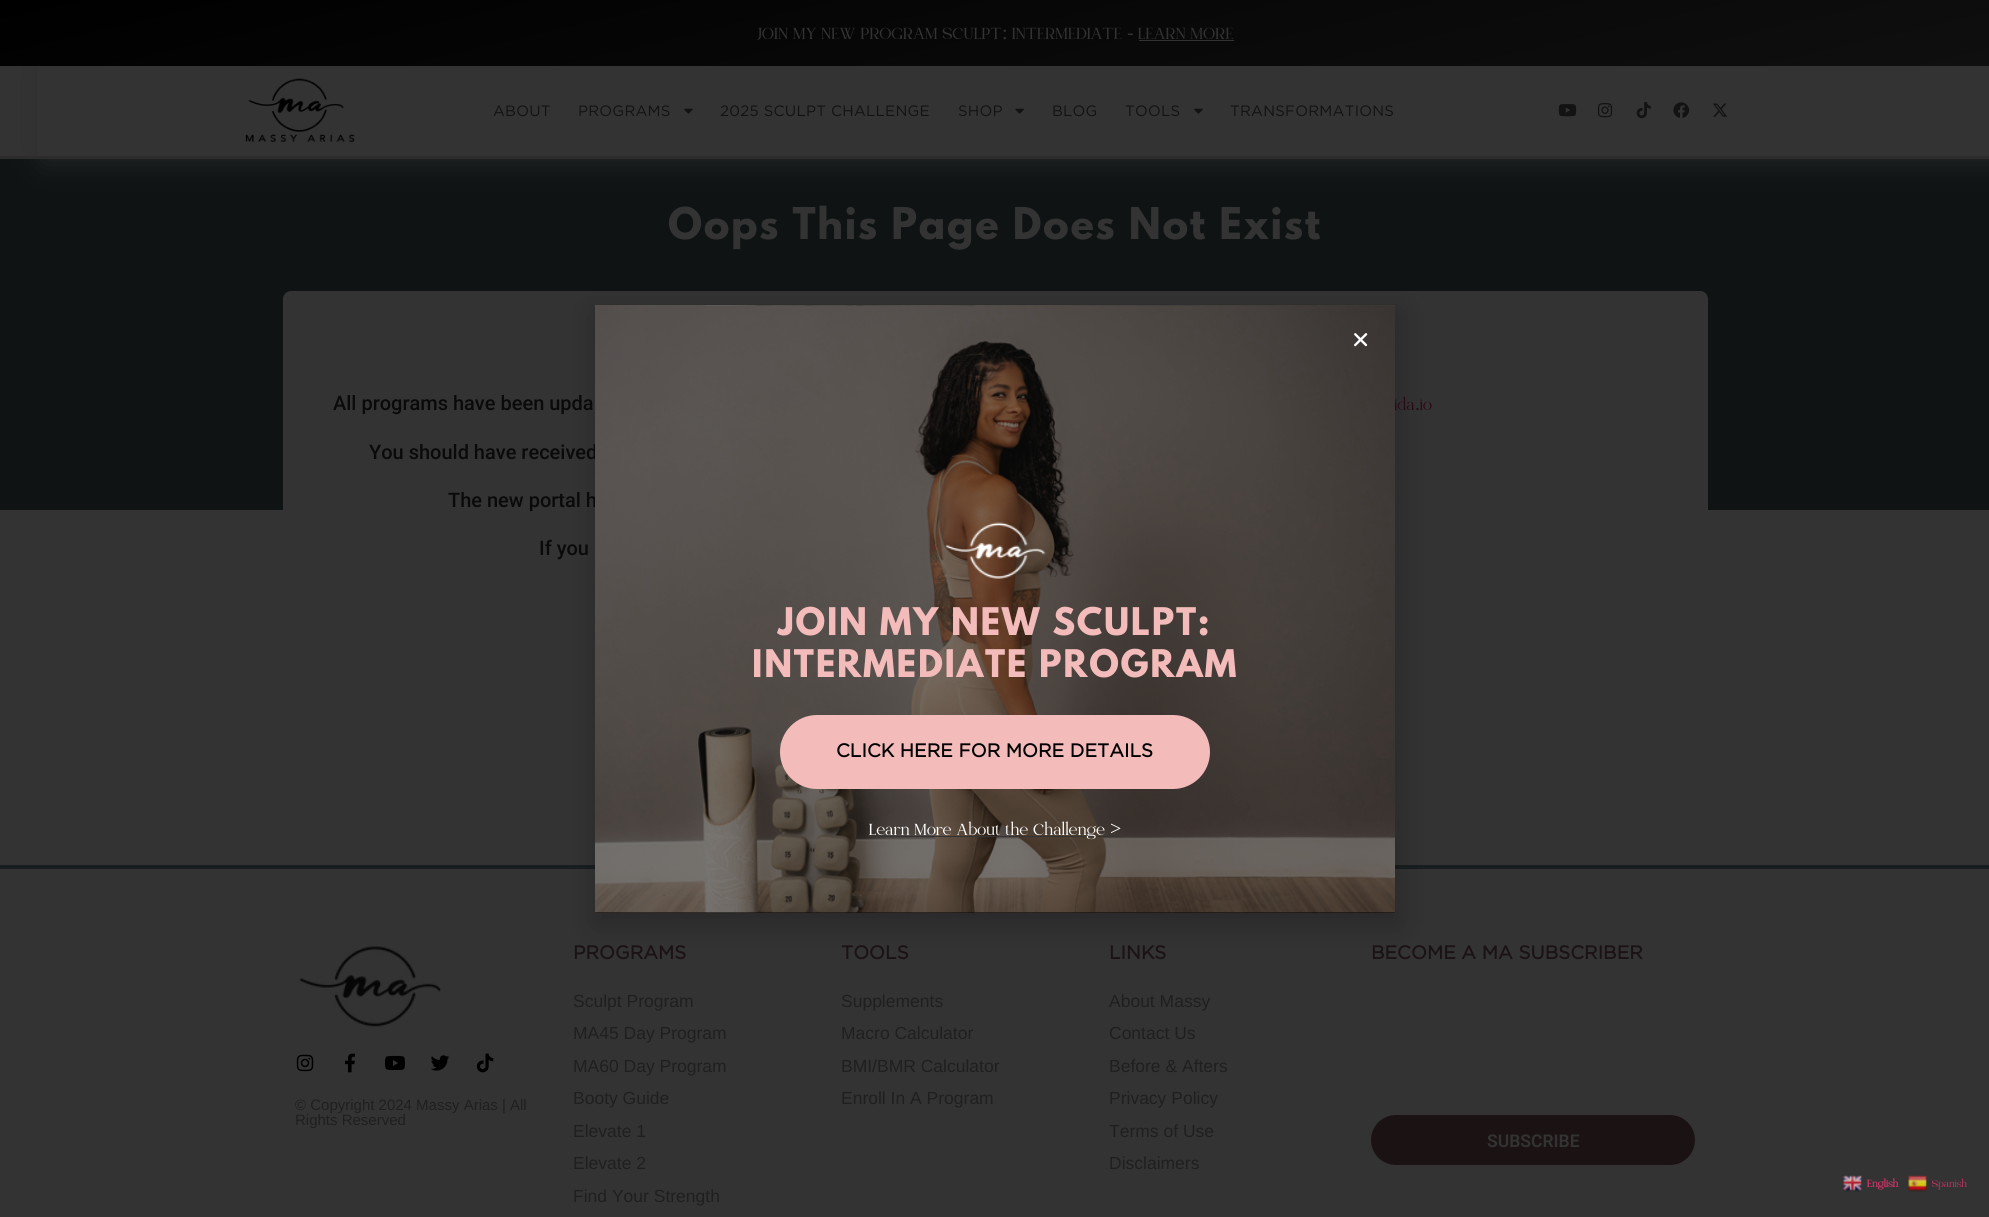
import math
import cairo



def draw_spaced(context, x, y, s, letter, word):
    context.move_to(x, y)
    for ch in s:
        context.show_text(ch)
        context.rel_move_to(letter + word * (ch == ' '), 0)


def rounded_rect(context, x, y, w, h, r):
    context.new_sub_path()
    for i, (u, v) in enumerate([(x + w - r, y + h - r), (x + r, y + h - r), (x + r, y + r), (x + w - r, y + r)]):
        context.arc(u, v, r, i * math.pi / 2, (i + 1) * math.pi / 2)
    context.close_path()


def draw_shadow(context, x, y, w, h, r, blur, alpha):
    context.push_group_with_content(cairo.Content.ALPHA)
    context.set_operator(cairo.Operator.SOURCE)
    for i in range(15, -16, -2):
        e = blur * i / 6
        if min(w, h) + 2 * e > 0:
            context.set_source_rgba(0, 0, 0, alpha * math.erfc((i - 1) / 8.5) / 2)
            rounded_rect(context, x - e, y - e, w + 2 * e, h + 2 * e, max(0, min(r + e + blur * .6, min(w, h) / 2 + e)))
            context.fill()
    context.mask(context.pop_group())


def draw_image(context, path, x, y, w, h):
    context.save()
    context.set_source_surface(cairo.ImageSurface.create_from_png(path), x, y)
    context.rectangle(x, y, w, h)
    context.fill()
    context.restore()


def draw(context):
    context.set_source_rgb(51 / 255, 51 / 255, 51 / 255)
    context.paint()
    context.set_source_rgb(15 / 255, 19 / 255, 19 / 255)
    context.rectangle(0, 159, 1989, 351)
    context.fill()
    context.set_source_rgb(43 / 255, 43 / 255, 43 / 255)
    draw_shadow(context, 44, 66, 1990, 93, 0, 15, 1)
    gradient = cairo.LinearGradient(937, -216, 1053, 283)
    gradient.add_color_stop_rgba(0, 0, 0, 0, 1)
    gradient.add_color_stop_rgba(1, 15 / 255, 15 / 255, 15 / 255, 1)
    context.set_source(gradient)
    context.rectangle(0, 0, 1989, 66)
    context.fill()
    context.set_source_rgb(51 / 255, 51 / 255, 51 / 255)
    context.rectangle(1139, 40, 95, 1)
    context.fill()
    context.rectangle(37, 66, 1952, 90)
    context.fill()
    context.set_source_rgb(44 / 255, 44 / 255, 44 / 255)
    context.rectangle(0, 156, 1989, 3)
    context.fill()
    draw_image(context, "images/1.png", 245, 78, 110, 64)
    draw_image(context, "images/2.png", 684, 108, 9, 6)
    draw_image(context, "images/3.png", 1015, 108, 9, 6)
    draw_image(context, "images/2.png", 1194, 108, 9, 6)
    draw_image(context, "images/4.png", 1558, 104, 19, 13)
    draw_image(context, "images/5.png", 1597, 103, 16, 15)
    draw_image(context, "images/6.png", 1636, 102, 15, 17)
    draw_image(context, "images/7.png", 1673, 102, 17, 16)
    draw_image(context, "images/8.png", 1712, 103, 16, 14)
    context.set_source_rgb(51 / 255, 51 / 255, 51 / 255)
    rounded_rect(context, 283, 291, 1425, 512, 8)
    context.fill()
    context.set_source_rgb(24 / 255, 30 / 255, 31 / 255)
    context.rectangle(0, 865, 1989, 4)
    context.fill()
    context.set_source_rgb(0, 0, 0)
    draw_shadow(context, 594, 311, 807, 615, 0, 14.5, 0.2)
    context.set_source_rgb(0, 0, 0)
    context.rectangle(595, 912, 800, 1)
    context.fill()
    draw_image(context, "images/12.png", 299, 946, 143, 81)
    draw_image(context, "images/13.png", 296, 1054, 18, 18)
    draw_image(context, "images/14.png", 345, 1053, 10, 20)
    draw_image(context, "images/15.png", 385, 1055, 20, 15)
    draw_image(context, "images/16.png", 430, 1055, 20, 16)
    draw_image(context, "images/17.png", 476, 1053, 18, 20)
    context.set_source_rgb(27 / 255, 18 / 255, 19 / 255)
    rounded_rect(context, 1371, 1115, 324, 50, 25)
    context.fill()
    draw_image(context, "images/18.png", 1843, 1175, 19, 17)
    draw_image(context, "images/19.png", 1908, 1175, 19, 17)
    context.select_font_face("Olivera")
    context.set_font_size(20)
    context.set_source_rgb(51 / 255, 51 / 255, 51 / 255)
    context.move_to(756, 39)
    context.show_text("JOIN MY NEW PROGRAM SCULPT")
    context.select_font_face("Liberation Serif")
    context.move_to(1002, 39)
    context.show_text(":")
    context.select_font_face("Olivera")
    context.move_to(1012, 39)
    context.show_text("INTERMEDIATE")
    context.select_font_face("Liberation Serif")
    context.move_to(1127, 39)
    context.show_text("-")
    context.select_font_face("Olivera")
    context.move_to(1138, 39)
    context.show_text("LEARN MORE")
    context.select_font_face("Gotham")
    context.set_font_size(15)
    context.set_source_rgb(17 / 255, 18 / 255, 19 / 255)
    draw_spaced(context, 493, 116, "ABOUT", 0.25, 0)
    draw_spaced(context, 578, 116, "PROGRAMS", 0.25, 0)
    draw_spaced(context, 720, 116, "2025 SCULPT CHALLENGE", 0.25, 0)
    draw_spaced(context, 958, 116, "SHOP", 0.25, 0)
    draw_spaced(context, 1052, 116, "BLOG", 0.25, 0)
    draw_spaced(context, 1125, 116, "TOOLS", 0.25, 0)
    draw_spaced(context, 1230, 116, "TRANSFORMATIONS", 0.25, 0)
    context.select_font_face("League Spartan", cairo.FontSlant.NORMAL, cairo.FontWeight.BOLD)
    context.set_font_size(38.75)
    context.set_source_rgb(51 / 255, 51 / 255, 51 / 255)
    draw_spaced(context, 668, 239, "Oops This Page Does Not Exist", 1.75, 0)
    context.select_font_face("Roboto Medium")
    context.set_font_size(20)
    context.set_source_rgb(10 / 255, 10 / 255, 10 / 255)
    context.move_to(333, 410)
    context.show_text("All programs have been upda")
    context.select_font_face("Olivera")
    context.set_source_rgb(41 / 255, 10 / 255, 20 / 255)
    context.move_to(1394, 410)
    context.show_text("ida io")
    context.select_font_face("Liberation Serif")
    context.move_to(1415, 410)
    context.show_text(".")
    context.select_font_face("Roboto Medium")
    context.set_source_rgb(10 / 255, 10 / 255, 10 / 255)
    context.move_to(369, 459)
    context.show_text("You should have received")
    context.move_to(448, 507)
    context.show_text("The new portal h")
    context.move_to(539, 555)
    context.show_text("If you")
    draw_image(context, "images/10.png", 595, 305, 800, 608)
    context.set_source_rgba(0, 0, 0, 0.46)
    context.rectangle(595, 305, 800, 608)
    context.fill()
    draw_image(context, "images/9.png", 1354, 333, 14, 14)
    draw_image(context, "images/11.png", 945, 522, 101, 57)
    context.select_font_face("League Spartan", cairo.FontSlant.NORMAL, cairo.FontWeight.BOLD)
    context.set_font_size(33.75)
    context.set_source_rgb(243 / 255, 188 / 255, 186 / 255)
    draw_spaced(context, 778, 635, "JOIN MY NEW SCULPT:", 1.75, 0)
    draw_spaced(context, 752, 677, "INTERMEDIATE PROGRAM", 1.75, 0)
    rounded_rect(context, 780, 715, 430, 74, 37)
    context.fill()
    context.select_font_face("Gotham", cairo.FontSlant.NORMAL, cairo.FontWeight.BOLD)
    context.set_font_size(18.75)
    context.set_source_rgb(0, 0, 0)
    context.move_to(836, 757)
    context.show_text("CLICK HERE FOR MORE DETAILS")
    context.set_source_rgb(51 / 255, 51 / 255, 51 / 255)
    context.rectangle(869, 836, 252, 1)
    context.fill()
    context.select_font_face("Olivera")
    context.set_font_size(20)
    context.set_source_rgb(1, 1, 1)
    context.move_to(869, 835)
    context.show_text("Learn More About the Challenge")
    context.select_font_face("Liberation Serif")
    context.move_to(1110, 835)
    context.show_text(">")
    context.select_font_face("Liberation Sans")
    context.set_font_size(15)
    context.set_source_rgb(31 / 255, 31 / 255, 31 / 255)
    context.move_to(295, 1110)
    context.show_text("© Copyright 2024 Massy Arias | All")
    context.move_to(295, 1125)
    context.show_text("Rights Reserved")
    context.select_font_face("Gotham", cairo.FontSlant.NORMAL, cairo.FontWeight.BOLD)
    context.set_font_size(18.75)
    context.set_source_rgb(27 / 255, 18 / 255, 19 / 255)
    context.move_to(573, 959)
    context.show_text("PROGRAMS")
    context.select_font_face("Liberation Sans")
    context.set_font_size(17.5)
    context.set_source_rgb(31 / 255, 31 / 255, 31 / 255)
    context.move_to(573, 1007)
    context.show_text("Sculpt Program")
    context.move_to(573, 1039)
    context.show_text("MA45 Day Program")
    context.move_to(573, 1072)
    context.show_text("MA60 Day Program")
    context.move_to(573, 1104)
    context.show_text("Booty Guide")
    context.move_to(573, 1137)
    context.show_text("Elevate 1")
    context.move_to(573, 1169)
    context.show_text("Elevate 2")
    context.move_to(573, 1202)
    context.show_text("Find Your Strength")
    context.select_font_face("Gotham", cairo.FontSlant.NORMAL, cairo.FontWeight.BOLD)
    context.set_font_size(18.75)
    context.set_source_rgb(27 / 255, 18 / 255, 19 / 255)
    context.move_to(841, 959)
    context.show_text("TOOLS")
    context.select_font_face("Liberation Sans")
    context.set_font_size(17.5)
    context.set_source_rgb(31 / 255, 31 / 255, 31 / 255)
    context.move_to(841, 1007)
    context.show_text("Supplements")
    context.move_to(841, 1039)
    context.show_text("Macro Calculator")
    context.move_to(841, 1072)
    context.show_text("BMI/BMR Calculator")
    context.move_to(841, 1104)
    context.show_text("Enroll In A Program")
    context.select_font_face("Gotham", cairo.FontSlant.NORMAL, cairo.FontWeight.BOLD)
    context.set_font_size(18.75)
    context.set_source_rgb(27 / 255, 18 / 255, 19 / 255)
    context.move_to(1109, 959)
    context.show_text("LINKS")
    context.select_font_face("Liberation Sans")
    context.set_font_size(17.5)
    context.set_source_rgb(31 / 255, 31 / 255, 31 / 255)
    context.move_to(1109, 1007)
    context.show_text("About Massy")
    context.move_to(1109, 1039)
    context.show_text("Contact Us")
    context.move_to(1109, 1072)
    context.show_text("Before & Afters")
    context.move_to(1109, 1104)
    context.show_text("Privacy Policy")
    context.move_to(1109, 1137)
    context.show_text("Terms of Use")
    context.move_to(1109, 1169)
    context.show_text("Disclaimers")
    context.select_font_face("Gotham", cairo.FontSlant.NORMAL, cairo.FontWeight.BOLD)
    context.set_font_size(18.75)
    context.set_source_rgb(27 / 255, 18 / 255, 19 / 255)
    context.move_to(1371, 959)
    context.show_text("BECOME A MA SUBSCRIBER")
    context.select_font_face("Roboto SemiBold")
    context.set_font_size(17.5)
    context.set_source_rgb(51 / 255, 51 / 255, 51 / 255)
    context.move_to(1487, 1147)
    context.show_text("SUBSCRIBE")
    context.select_font_face("Olivera", cairo.FontSlant.NORMAL, cairo.FontWeight.BOLD)
    context.set_font_size(12.5)
    context.set_source_rgb(204 / 255, 51 / 255, 102 / 255)
    context.move_to(1867, 1187)
    context.show_text("English")
    context.select_font_face("Olivera")
    context.move_to(1932, 1187)
    context.show_text("Spanish")


surface = cairo.ImageSurface(cairo.Format.RGB24, 1989, 1217)
context = cairo.Context(surface)
options = cairo.FontOptions()
options.set_hint_metrics(cairo.HintMetrics.OFF)
options.set_hint_style(cairo.HintStyle.NONE)
context.set_font_options(options)
context.set_miter_limit(4)
draw(context)
surface.write_to_png("out.png")
